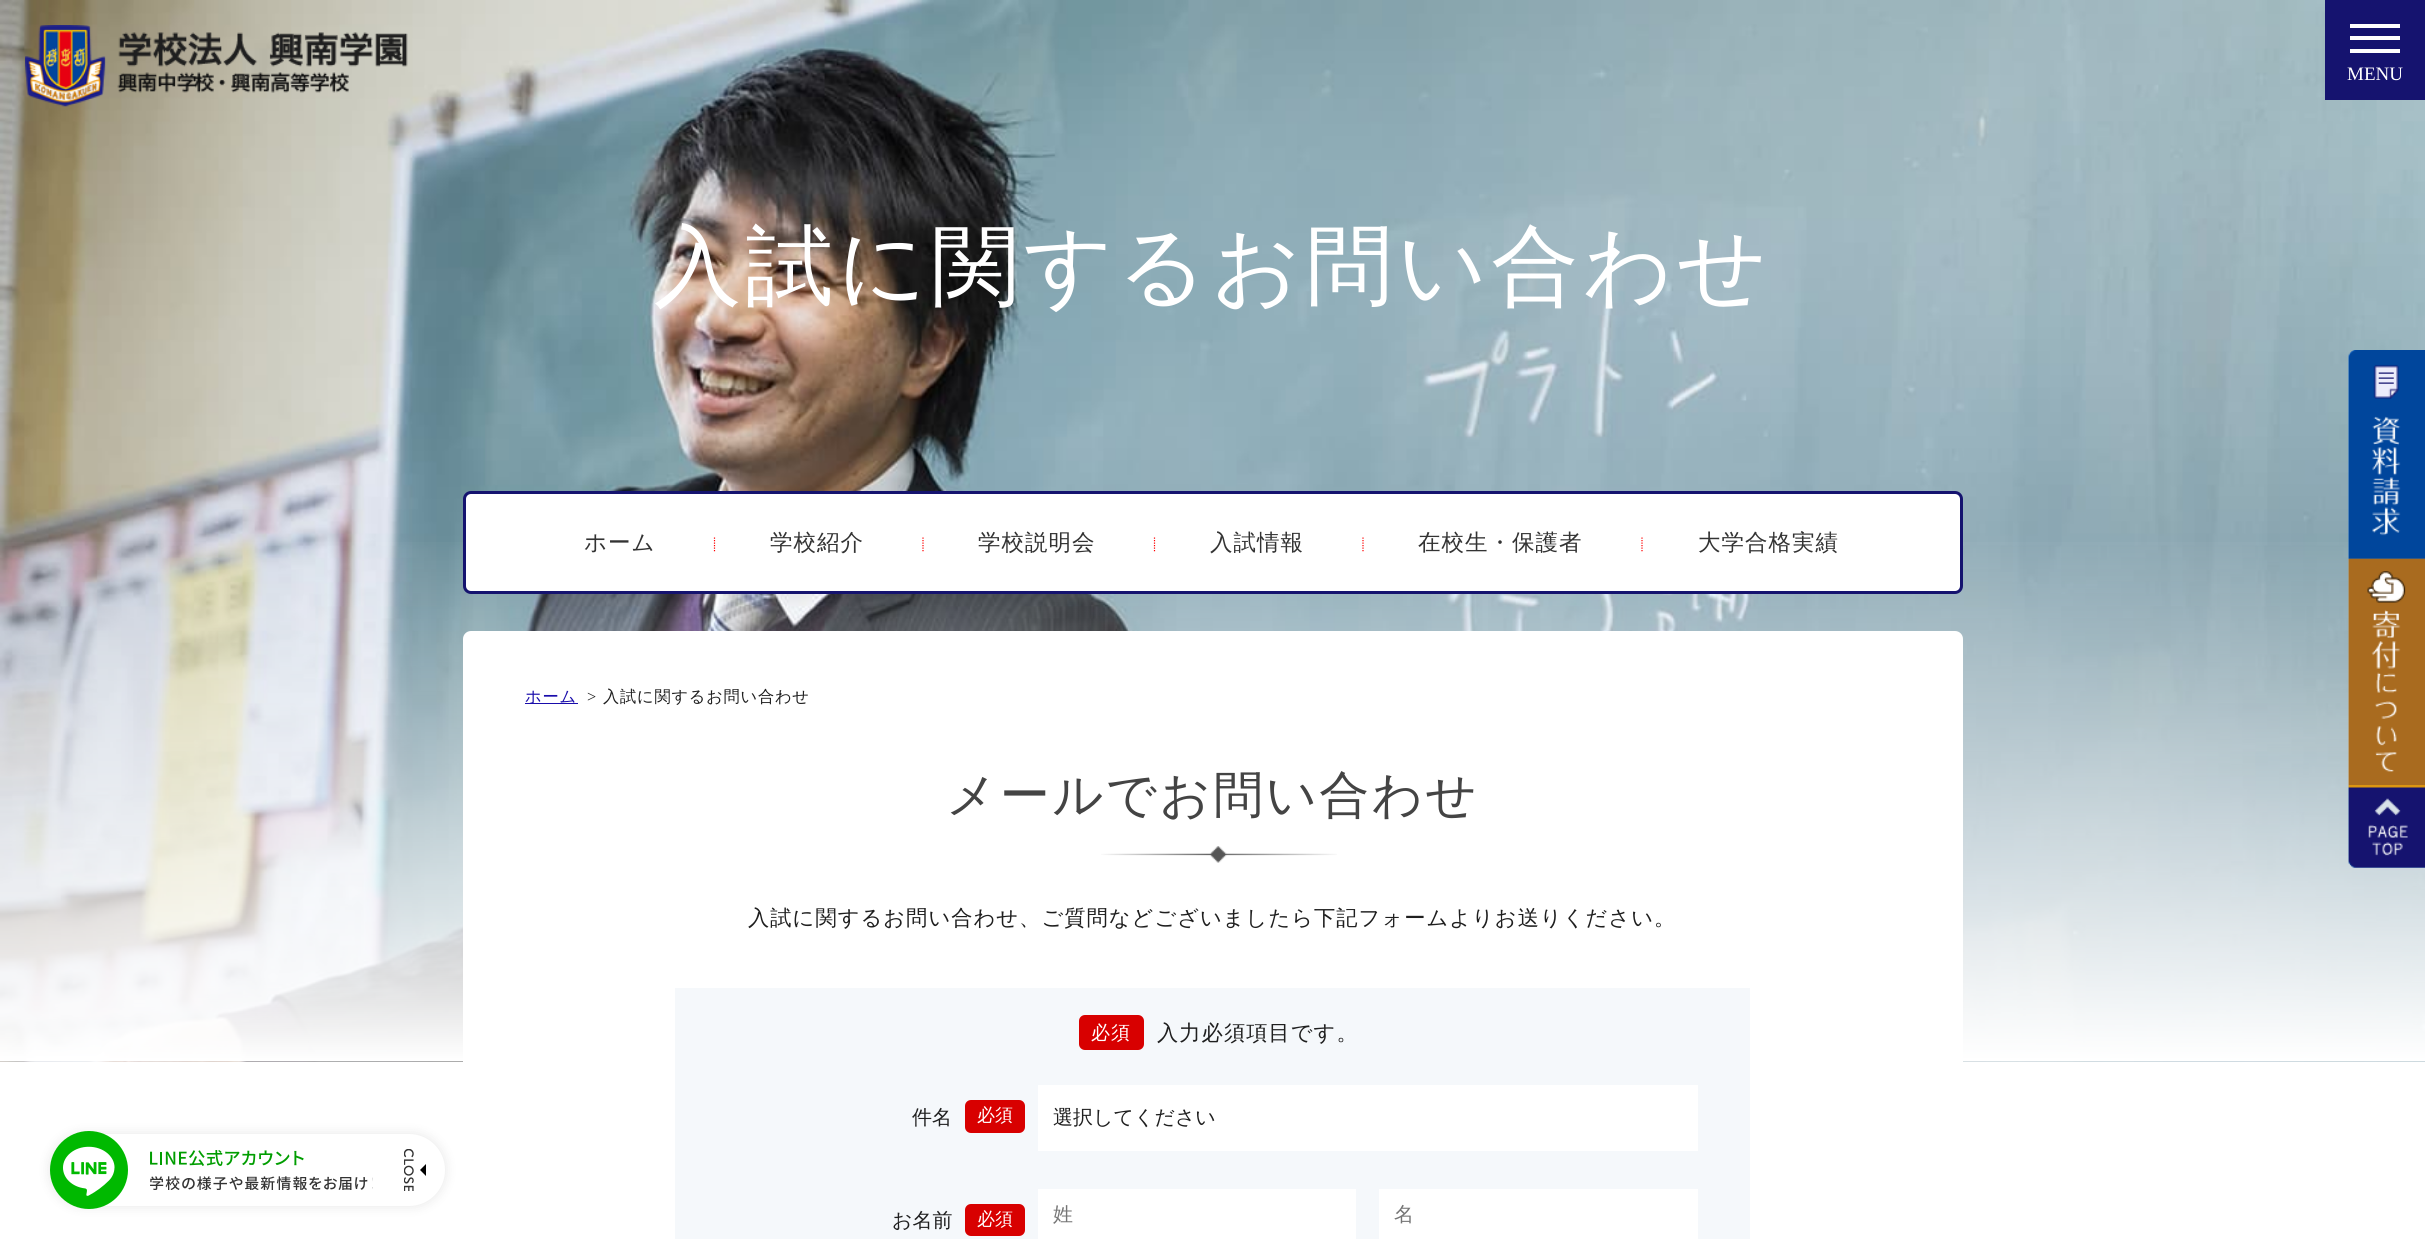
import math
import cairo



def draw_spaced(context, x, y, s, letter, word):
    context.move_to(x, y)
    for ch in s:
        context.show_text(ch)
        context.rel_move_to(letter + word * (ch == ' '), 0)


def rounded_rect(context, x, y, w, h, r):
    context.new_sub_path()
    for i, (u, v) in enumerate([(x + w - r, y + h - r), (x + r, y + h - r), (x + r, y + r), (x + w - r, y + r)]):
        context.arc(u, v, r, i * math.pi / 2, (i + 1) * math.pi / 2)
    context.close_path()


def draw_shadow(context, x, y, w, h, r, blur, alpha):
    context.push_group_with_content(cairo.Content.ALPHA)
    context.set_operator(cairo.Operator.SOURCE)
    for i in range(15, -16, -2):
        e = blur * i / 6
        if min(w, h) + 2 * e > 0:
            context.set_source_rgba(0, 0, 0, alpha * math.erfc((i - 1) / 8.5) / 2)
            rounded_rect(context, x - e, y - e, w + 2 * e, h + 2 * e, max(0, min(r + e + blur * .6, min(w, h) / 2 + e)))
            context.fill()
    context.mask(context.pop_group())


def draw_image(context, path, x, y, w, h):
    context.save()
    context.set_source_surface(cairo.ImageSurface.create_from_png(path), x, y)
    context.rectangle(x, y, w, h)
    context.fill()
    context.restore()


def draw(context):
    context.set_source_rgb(1, 1, 1)
    context.paint()
    draw_image(context, "images/2.png", 0, 0, 2425, 1062)
    draw_image(context, "images/1.png", 25, 25, 383, 82)
    context.set_source_rgb(21 / 255, 19 / 255, 111 / 255)
    context.rectangle(2325, 0, 100, 100)
    context.fill()
    context.set_source_rgb(1, 1, 1)
    context.rectangle(2350, 36, 50, 4)
    context.fill()
    context.rectangle(2350, 24, 50, 4)
    context.fill()
    context.rectangle(2350, 49, 50, 4)
    context.fill()
    gradient = cairo.LinearGradient(1213, 531, 1213, 1061)
    gradient.add_color_stop_rgba(0, 1, 1, 1, 0)
    gradient.add_color_stop_rgba(1, 1, 1, 1, 1)
    context.set_source(gradient)
    context.rectangle(0, 542, 2425, 519)
    context.fill()
    context.set_source_rgb(1, 1, 1)
    rounded_rect(context, 464.5, 492.5, 1497, 100, 6.5)
    context.fill_preserve()
    context.set_source_rgb(21 / 255, 19 / 255, 111 / 255)
    context.set_line_width(3)
    context.stroke()
    context.new_path()
    context.move_to(714.5, 537.5)
    context.line_to(714.5, 552.5)
    context.set_source_rgb(1, 0, 0)
    context.set_line_width(1.2)
    context.set_dash([1.25, 1.25])
    context.stroke()
    context.new_path()
    context.move_to(923, 537.5)
    context.line_to(923, 552.5)
    context.stroke()
    context.new_path()
    context.move_to(1154.5, 537.5)
    context.line_to(1154.5, 552.5)
    context.stroke()
    context.new_path()
    context.move_to(1363, 537.5)
    context.line_to(1363, 552.5)
    context.stroke()
    context.new_path()
    context.move_to(1642, 537.5)
    context.line_to(1642, 552.5)
    context.stroke()
    context.set_source_rgb(1, 1, 1)
    rounded_rect(context, 463, 631, 1500, 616, 8)
    context.fill()
    context.set_source_rgb(25 / 255, 12 / 255, 171 / 255)
    context.rectangle(525, 703, 53, 1)
    context.fill()
    draw_image(context, "images/3.png", 1101, 846, 236, 17)
    context.set_source_rgb(245 / 255, 248 / 255, 251 / 255)
    context.rectangle(675, 988, 1075, 251)
    context.fill()
    context.set_source_rgb(216 / 255, 0, 0)
    rounded_rect(context, 1079, 1015, 65, 35, 6)
    context.fill()
    rounded_rect(context, 965, 1100, 60, 33, 6)
    context.fill()
    context.set_source_rgb(1, 1, 1)
    context.rectangle(1038, 1085, 660, 66)
    context.fill()
    context.set_source_rgb(216 / 255, 0, 0)
    rounded_rect(context, 965, 1204, 60, 32, 6)
    context.fill()
    context.set_source_rgb(1, 1, 1)
    context.rectangle(1038, 1189, 318, 50)
    context.fill()
    context.rectangle(1379, 1189, 319, 50)
    context.fill()
    draw_image(context, "images/4.png", 2348, 350, 77, 209)
    draw_image(context, "images/6.png", 2348, 558, 77, 227)
    draw_image(context, "images/5.png", 2348, 350, 77, 209)
    draw_image(context, "images/7.png", 2348, 558, 77, 227)
    draw_image(context, "images/8.png", 2348, 785, 77, 83)
    draw_image(context, "images/9.png", 2348, 785, 77, 83)
    context.set_source_rgb(0, 0, 0)
    draw_shadow(context, 50, 1134, 395, 72, 36, 6, 0.1)
    context.set_source_rgb(1, 1, 1)
    rounded_rect(context, 50, 1134, 395, 72, 36)
    context.fill()
    draw_image(context, "images/10.png", 150, 1150, 154, 16)
    draw_image(context, "images/11.png", 150, 1176, 223, 14)
    draw_image(context, "images/12.png", 404, 1149, 10, 42)
    context.set_source_rgb(0, 0, 0)
    context.new_path()
    context.move_to(426, 1176)
    context.line_to(420, 1170)
    context.line_to(426, 1164)
    context.close_path()
    context.fill()
    draw_image(context, "images/13.png", 50, 1131, 78, 78)
    context.select_font_face("Liberation Serif")
    context.set_font_size(19)
    context.set_source_rgb(1, 1, 1)
    context.move_to(2347, 80)
    context.show_text("MENU")
    context.select_font_face("WenQuanYi Zen Hei Medium")
    context.set_font_size(87.5)
    draw_spaced(context, 654, 296, "入試に関するお問い合わせ", 4.4, 0)
    context.set_font_size(22.5)
    context.set_source_rgb(51 / 255, 51 / 255, 51 / 255)
    draw_spaced(context, 584, 550, "ホーム", 1, 0)
    draw_spaced(context, 770, 550, "学校紹介", 1, 0)
    draw_spaced(context, 978, 550, "学校説明会", 1, 0)
    draw_spaced(context, 1210, 550, "入試情報", 1, 0)
    draw_spaced(context, 1418, 550, "在校生・保護者", 1, 0)
    draw_spaced(context, 1698, 550, "大学合格実績", 1, 0)
    context.set_font_size(16.25)
    context.set_source_rgb(25 / 255, 12 / 255, 171 / 255)
    draw_spaced(context, 525, 702, "ホーム", 0.75, 0)
    context.select_font_face("Liberation Serif")
    context.set_source_rgb(31 / 255, 31 / 255, 31 / 255)
    draw_spaced(context, 587, 702, ">", 0.75, 0)
    context.select_font_face("WenQuanYi Zen Hei Medium")
    draw_spaced(context, 603, 702, "入試に関するお問い合わせ", 0.75, 0)
    context.set_font_size(50)
    context.set_source_rgb(68 / 255, 68 / 255, 68 / 255)
    draw_spaced(context, 946, 812, "メールでお問い合わせ", 2.5, 0)
    context.set_font_size(21.25)
    context.set_source_rgb(31 / 255, 31 / 255, 31 / 255)
    draw_spaced(context, 748, 925, "入試に関するお問い合わせ、ご質問などございましたら下記フォームよりお送りください。", 1.05, 0)
    context.set_font_size(19)
    context.set_source_rgb(1, 1, 1)
    draw_spaced(context, 1091, 1039, "必須", 1.05, 0)
    context.set_font_size(21.25)
    context.set_source_rgb(31 / 255, 31 / 255, 31 / 255)
    draw_spaced(context, 1157, 1040, "入力必須項目です。", 1.05, 0)
    context.set_font_size(20)
    context.move_to(912, 1124)
    context.show_text("件名")
    context.set_font_size(18)
    context.set_source_rgb(1, 1, 1)
    context.move_to(977, 1121)
    context.show_text("必須")
    context.set_font_size(20)
    context.set_source_rgb(31 / 255, 31 / 255, 31 / 255)
    context.move_to(1053, 1124)
    context.show_text("選択してください")
    context.move_to(892, 1227)
    context.show_text("お名前")
    context.set_font_size(18)
    context.set_source_rgb(1, 1, 1)
    context.move_to(977, 1225)
    context.show_text("必須")
    context.set_font_size(20)
    context.set_source_rgb(117 / 255, 117 / 255, 117 / 255)
    context.move_to(1053, 1221)
    context.show_text("姓")
    context.move_to(1394, 1221)
    context.show_text("名")


surface = cairo.ImageSurface(cairo.Format.RGB24, 2425, 1239)
context = cairo.Context(surface)
options = cairo.FontOptions()
options.set_hint_metrics(cairo.HintMetrics.OFF)
options.set_hint_style(cairo.HintStyle.NONE)
context.set_font_options(options)
context.set_miter_limit(4)
draw(context)
surface.write_to_png("out.png")
